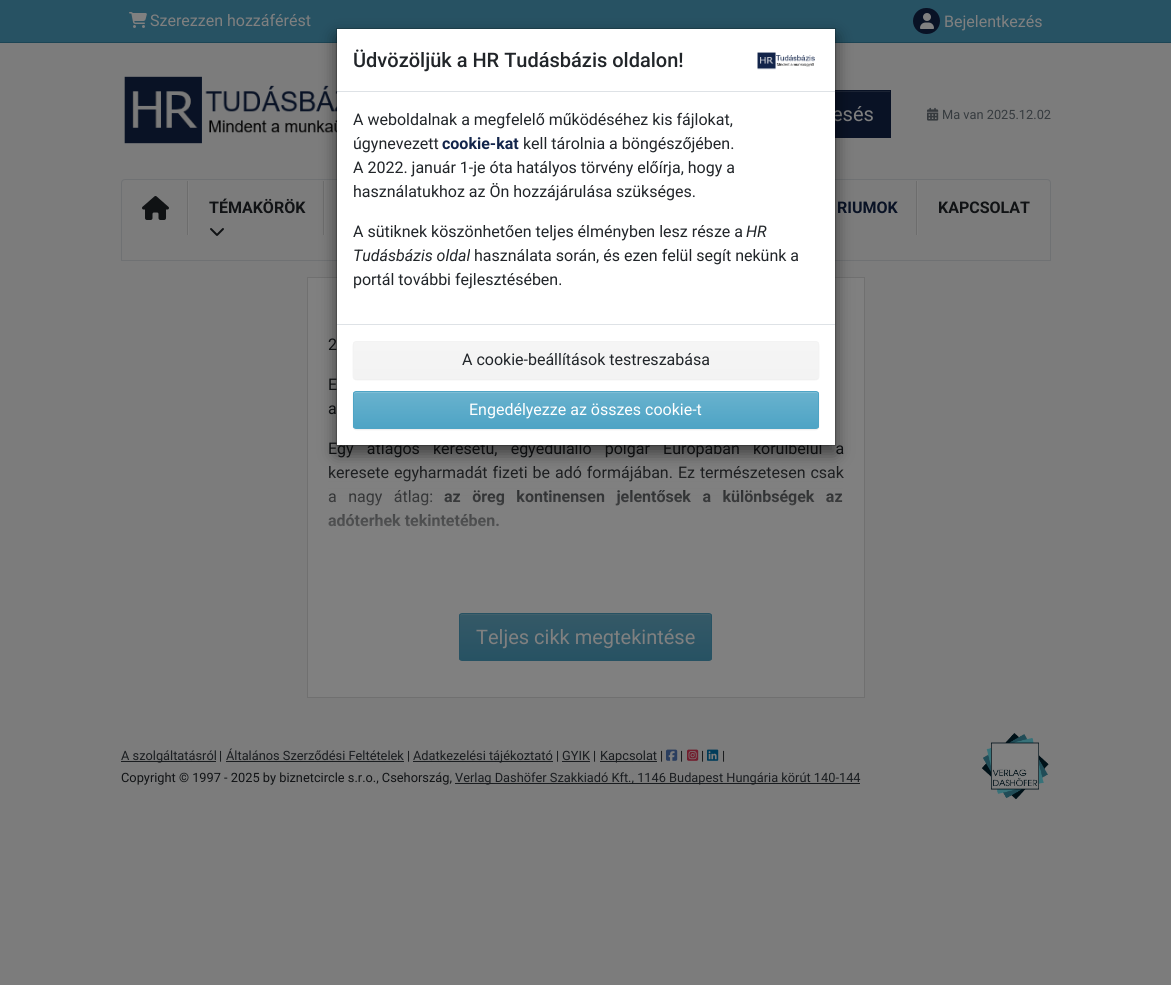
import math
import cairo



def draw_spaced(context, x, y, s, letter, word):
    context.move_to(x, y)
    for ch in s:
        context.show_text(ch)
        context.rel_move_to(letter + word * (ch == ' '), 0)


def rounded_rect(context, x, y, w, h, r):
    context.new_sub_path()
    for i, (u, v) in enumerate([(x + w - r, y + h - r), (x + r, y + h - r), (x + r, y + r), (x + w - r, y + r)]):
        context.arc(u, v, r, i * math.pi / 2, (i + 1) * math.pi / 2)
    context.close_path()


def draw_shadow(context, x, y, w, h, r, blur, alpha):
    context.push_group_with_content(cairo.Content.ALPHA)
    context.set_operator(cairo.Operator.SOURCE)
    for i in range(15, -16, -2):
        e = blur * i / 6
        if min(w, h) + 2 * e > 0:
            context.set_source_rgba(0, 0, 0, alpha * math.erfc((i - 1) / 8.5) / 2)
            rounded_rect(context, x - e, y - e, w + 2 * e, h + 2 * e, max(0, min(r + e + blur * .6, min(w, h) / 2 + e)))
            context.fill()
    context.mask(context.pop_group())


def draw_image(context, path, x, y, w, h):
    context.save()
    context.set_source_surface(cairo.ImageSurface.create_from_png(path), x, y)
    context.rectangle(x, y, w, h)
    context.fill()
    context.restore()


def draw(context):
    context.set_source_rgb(124 / 255, 124 / 255, 124 / 255)
    context.paint()
    context.set_source_rgb(39 / 255, 82 / 255, 99 / 255)
    context.rectangle(0, 0, 1171, 42)
    context.fill()
    context.set_source_rgb(28 / 255, 69 / 255, 85 / 255)
    context.rectangle(0, 42, 1171, 1)
    context.fill()
    draw_image(context, "images/1.png", 129, 12, 18, 16)
    context.set_source_rgb(9 / 255, 18 / 255, 37 / 255)
    rounded_rect(context, 913, 8, 27, 26, 13)
    context.fill()
    draw_image(context, "images/2.png", 920, 13, 14, 16)
    draw_image(context, "images/4.png", 124, 76, 213, 68)
    context.rectangle(835, 90, 56, 48)
    context.fill()
    context.set_source_rgb(27 / 255, 35 / 255, 51 / 255)
    context.rectangle(835, 91, 55, 1)
    context.fill()
    draw_image(context, "images/5.png", 927, 107, 12, 14)
    context.new_path()
    context.move_to(125, 179.5)
    context.line_to(1047, 179.5)
    context.curve_to(1049, 179.5, 1050.5, 181, 1050.5, 183)
    context.line_to(1050.5, 260.5)
    context.line_to(121.5, 260.5)
    context.line_to(121.5, 183)
    context.curve_to(121.5, 181, 123, 179.5, 125, 179.5)
    context.close_path()
    context.set_source_rgb(111 / 255, 113 / 255, 115 / 255)
    context.set_line_width(1)
    context.stroke()
    draw_image(context, "images/6.png", 142, 196, 27, 24)
    context.set_source_rgb(128 / 255, 128 / 255, 128 / 255)
    context.rectangle(188, 181, 1, 54)
    context.fill()
    context.set_source_rgb(109 / 255, 109 / 255, 109 / 255)
    context.rectangle(187, 181, 1, 54)
    context.fill()
    context.set_source_rgb(128 / 255, 128 / 255, 128 / 255)
    context.rectangle(324, 181, 1, 54)
    context.fill()
    context.set_source_rgb(109 / 255, 109 / 255, 109 / 255)
    context.rectangle(323, 181, 1, 54)
    context.fill()
    draw_image(context, "images/7.png", 210, 228, 14, 8)
    context.set_source_rgb(128 / 255, 128 / 255, 128 / 255)
    context.rectangle(917, 181, 1, 54)
    context.fill()
    context.set_source_rgb(109 / 255, 109 / 255, 109 / 255)
    context.rectangle(916, 181, 1, 54)
    context.fill()
    context.set_source_rgb(128 / 255, 128 / 255, 128 / 255)
    context.rectangle(307.5, 277.5, 557, 420)
    context.fill_preserve()
    context.set_source_rgb(112 / 255, 112 / 255, 112 / 255)
    context.stroke()
    context.save()
    rounded_rect(context, 459, 613, 253, 48, 3)
    context.clip()
    gradient = cairo.LinearGradient(586, 614, 586, 660)
    gradient.add_color_stop_rgba(0, 53 / 255, 89 / 255, 103 / 255, 1)
    gradient.add_color_stop_rgba(1, 39 / 255, 82 / 255, 99 / 255, 1)
    context.set_source(gradient)
    context.rectangle(459, 614, 253, 46)
    context.fill()
    context.restore()
    context.set_source_rgb(64 / 255, 95 / 255, 107 / 255)
    context.new_path()
    context.move_to(462, 615)
    context.line_to(709, 615)
    context.curve_to(710, 615, 711, 616, 711, 617)
    context.curve_to(711, 616, 711, 614, 709, 614)
    context.line_to(462, 614)
    context.curve_to(460, 614, 460, 616, 460, 617)
    context.curve_to(460, 616, 461, 615, 462, 615)
    context.close_path()
    context.fill()
    rounded_rect(context, 459.5, 613.5, 252, 47, 2.5)
    context.set_source_rgb(39 / 255, 82 / 255, 99 / 255)
    context.stroke()
    context.set_source_rgb(26 / 255, 29 / 255, 32 / 255)
    context.rectangle(121, 761, 95, 1)
    context.fill()
    context.rectangle(226, 761, 178, 1)
    context.fill()
    context.rectangle(413, 761, 140, 1)
    context.fill()
    context.rectangle(562, 761, 28, 1)
    context.fill()
    context.rectangle(600, 761, 57, 1)
    context.fill()
    draw_image(context, "images/8.png", 666, 749, 12, 12)
    draw_image(context, "images/9.png", 687, 749, 12, 12)
    draw_image(context, "images/10.png", 707, 749, 12, 12)
    context.rectangle(455, 783, 405, 1)
    context.fill()
    draw_image(context, "images/11.png", 981, 733, 68, 67)
    context.select_font_face("Roboto")
    context.set_font_size(16)
    context.set_source_rgb(128 / 255, 128 / 255, 128 / 255)
    context.move_to(150, 26)
    context.show_text("Szerezzen hozzáférést")
    context.move_to(944, 27)
    context.show_text("Bejelentkezés")
    context.set_font_size(20)
    context.move_to(832, 121)
    context.show_text("esés")
    context.set_font_size(12.8)
    context.set_source_rgb(54 / 255, 59 / 255, 63 / 255)
    context.move_to(942, 119)
    context.show_text("Ma van 2025.12.02")
    context.select_font_face("Roboto", cairo.FontSlant.NORMAL, cairo.FontWeight.BOLD)
    context.set_font_size(16)
    context.set_source_rgb(17 / 255, 19 / 255, 21 / 255)
    context.move_to(209, 213)
    context.show_text("TÉMAKÖRÖK")
    context.set_source_rgb(9 / 255, 18 / 255, 37 / 255)
    context.move_to(837, 213)
    context.show_text("RIUMOK")
    context.set_source_rgb(17 / 255, 19 / 255, 21 / 255)
    context.move_to(938, 213)
    context.show_text("KAPCSOLAT")
    context.select_font_face("Roboto")
    context.move_to(328, 350)
    context.show_text("2")
    context.move_to(328, 390)
    context.show_text("E")
    context.move_to(328, 414)
    context.show_text("a")
    draw_spaced(context, 328, 454, "Egy átlagos keresetű, egyedülálló polgár Európában körülbelül a", 0, 9.25)
    draw_spaced(context, 328, 478, "keresete egyharmadát fizeti be adó formájában. Ez természetesen csak", 0, 1)
    draw_spaced(context, 328, 502, "a nagy átlag:", 0, 7.5)
    context.select_font_face("Roboto", cairo.FontSlant.NORMAL, cairo.FontWeight.BOLD)
    draw_spaced(context, 444, 502, "az öreg kontinensen jelentősek a különbségek az", 0, 7.5)
    context.move_to(328, 526)
    context.show_text("adóterhek tekintetében.")
    gradient = cairo.LinearGradient(586, 461, 586, 573)
    gradient.add_color_stop_rgba(0, 128 / 255, 128 / 255, 128 / 255, 0)
    gradient.add_color_stop_rgba(1, 128 / 255, 128 / 255, 128 / 255, 1)
    context.set_source(gradient)
    context.rectangle(328, 466, 515, 61)
    context.fill()
    context.set_source_rgb(0, 0, 0)
    draw_shadow(context, 336, 36, 500, 418, 0, 8, 0.5)
    context.set_source_rgb(1, 1, 1)
    context.rectangle(337, 29, 498, 416)
    context.fill()
    context.rectangle(336.5, 28.5, 499, 417)
    context.set_source_rgba(0, 0, 0, 0.2)
    context.stroke()
    context.select_font_face("Roboto")
    context.set_source_rgb(33 / 255, 37 / 255, 41 / 255)
    context.move_to(353, 285)
    context.show_text("portál további fejlesztésében.")
    context.move_to(474, 261)
    context.show_text("használata során, és ezen felül segít nekünk a")
    context.select_font_face("Roboto", cairo.FontSlant.ITALIC)
    context.move_to(353, 261)
    context.show_text("Tudásbázis oldal")
    context.move_to(746, 237)
    context.show_text("HR")
    context.select_font_face("Roboto")
    context.move_to(353, 237)
    context.show_text("A sütiknek köszönhetően teljes élményben lesz része a")
    context.move_to(353, 197)
    context.show_text("használatukhoz az Ön hozzájárulása szükséges.")
    context.move_to(353, 173)
    context.show_text("A 2022. január 1-je óta hatályos törvény előírja, hogy a")
    context.move_to(523, 149)
    context.show_text("kell tárolnia a böngészőjében.")
    context.select_font_face("Roboto", cairo.FontSlant.NORMAL, cairo.FontWeight.BOLD)
    context.set_source_rgb(18 / 255, 36 / 255, 74 / 255)
    context.move_to(442, 149)
    context.show_text("cookie-kat")
    context.select_font_face("Roboto")
    context.set_source_rgb(33 / 255, 37 / 255, 41 / 255)
    context.move_to(353, 149)
    context.show_text("úgynevezett")
    context.move_to(353, 125)
    context.show_text("A weboldalnak a megfelelő működéséhez kis fájlokat,")
    context.set_source_rgb(0, 0, 0)
    draw_shadow(context, 353, 392, 466, 38, 3, 0.5, 0.07)
    context.save()
    rounded_rect(context, 353, 391, 466, 38, 3)
    context.clip()
    gradient = cairo.LinearGradient(586, 392, 586, 428)
    gradient.add_color_stop_rgba(0, 105 / 255, 178 / 255, 206 / 255, 1)
    gradient.add_color_stop_rgba(1, 78 / 255, 164 / 255, 197 / 255, 1)
    context.set_source(gradient)
    context.rectangle(353, 392, 466, 36)
    context.fill()
    context.restore()
    context.set_source_rgb(127 / 255, 190 / 255, 213 / 255)
    context.new_path()
    context.move_to(356, 393)
    context.line_to(816, 393)
    context.curve_to(817, 393, 818, 394, 818, 395)
    context.curve_to(818, 394, 818, 392, 816, 392)
    context.line_to(356, 392)
    context.line_to(354, 393)
    context.line_to(354, 395)
    context.curve_to(354, 394, 355, 393, 356, 393)
    context.close_path()
    context.fill()
    rounded_rect(context, 353.5, 391.5, 465, 37, 2.5)
    context.set_source_rgb(78 / 255, 164 / 255, 197 / 255)
    context.stroke()
    context.set_source_rgb(1, 1, 1)
    context.move_to(469, 415)
    context.show_text("Engedélyezze az összes cookie-t")
    context.set_source_rgb(0, 0, 0)
    draw_shadow(context, 353, 342, 466, 38, 3, 0.5, 0.07)
    context.save()
    rounded_rect(context, 353, 341, 466, 38, 3)
    context.clip()
    gradient = cairo.LinearGradient(586, 342, 586, 378)
    gradient.add_color_stop_rgba(0, 245 / 255, 245 / 255, 245 / 255, 1)
    gradient.add_color_stop_rgba(1, 243 / 255, 243 / 255, 243 / 255, 1)
    context.set_source(gradient)
    context.rectangle(353, 342, 466, 36)
    context.fill()
    context.restore()
    rounded_rect(context, 353.5, 341.5, 465, 37, 2.5)
    context.set_source_rgb(243 / 255, 243 / 255, 243 / 255)
    context.stroke()
    context.set_source_rgb(33 / 255, 37 / 255, 41 / 255)
    context.move_to(462, 365)
    context.show_text("A cookie-beállítások testreszabása")
    context.set_source_rgb(222 / 255, 226 / 255, 230 / 255)
    context.rectangle(337, 324, 498, 1)
    context.fill()
    context.select_font_face("Roboto Medium")
    context.set_font_size(20)
    context.set_source_rgb(33 / 255, 37 / 255, 41 / 255)
    context.move_to(353, 67)
    context.show_text("Üdvözöljük a HR Tudásbázis oldalon!")
    draw_image(context, "images/3.png", 757, 52, 58, 18)
    context.set_source_rgb(222 / 255, 226 / 255, 230 / 255)
    context.rectangle(337, 91, 498, 1)
    context.fill()
    context.select_font_face("Roboto")
    context.set_source_rgb(128 / 255, 128 / 255, 128 / 255)
    context.move_to(476, 644)
    context.show_text("Teljes cikk megtekintése")
    context.set_font_size(12.8)
    context.set_source_rgb(26 / 255, 29 / 255, 32 / 255)
    context.move_to(121, 760)
    context.show_text("A szolgáltatásról")
    context.set_source_rgb(17 / 255, 19 / 255, 21 / 255)
    context.move_to(219, 760)
    context.show_text("|")
    context.set_source_rgb(26 / 255, 29 / 255, 32 / 255)
    context.move_to(226, 760)
    context.show_text("Általános Szerződési Feltételek")
    context.set_source_rgb(17 / 255, 19 / 255, 21 / 255)
    context.move_to(407, 760)
    context.show_text("|")
    context.set_source_rgb(26 / 255, 29 / 255, 32 / 255)
    context.move_to(413, 760)
    context.show_text("Adatkezelési tájékoztató")
    context.set_source_rgb(17 / 255, 19 / 255, 21 / 255)
    context.move_to(556, 760)
    context.show_text("|")
    context.set_source_rgb(26 / 255, 29 / 255, 32 / 255)
    context.move_to(562, 760)
    context.show_text("GYIK")
    context.set_source_rgb(17 / 255, 19 / 255, 21 / 255)
    context.move_to(593, 760)
    context.show_text("|")
    context.set_source_rgb(26 / 255, 29 / 255, 32 / 255)
    context.move_to(600, 760)
    context.show_text("Kapcsolat")
    context.set_source_rgb(17 / 255, 19 / 255, 21 / 255)
    context.move_to(660, 760)
    context.show_text("|")
    context.move_to(680, 760)
    context.show_text("|")
    context.move_to(701, 760)
    context.show_text("|")
    context.move_to(722, 760)
    context.show_text("|")
    context.move_to(121, 782)
    context.show_text("Copyright © 1997 - 2025 by biznetcircle s.r.o., Csehország,")
    context.set_source_rgb(26 / 255, 29 / 255, 32 / 255)
    context.move_to(455, 782)
    context.show_text("Verlag Dashöfer Szakkiadó Kft., 1146 Budapest Hungária körút 140-144")


surface = cairo.ImageSurface(cairo.Format.RGB24, 1171, 985)
context = cairo.Context(surface)
options = cairo.FontOptions()
options.set_hint_metrics(cairo.HintMetrics.OFF)
options.set_hint_style(cairo.HintStyle.NONE)
context.set_font_options(options)
context.set_miter_limit(4)
draw(context)
surface.write_to_png("out.png")
